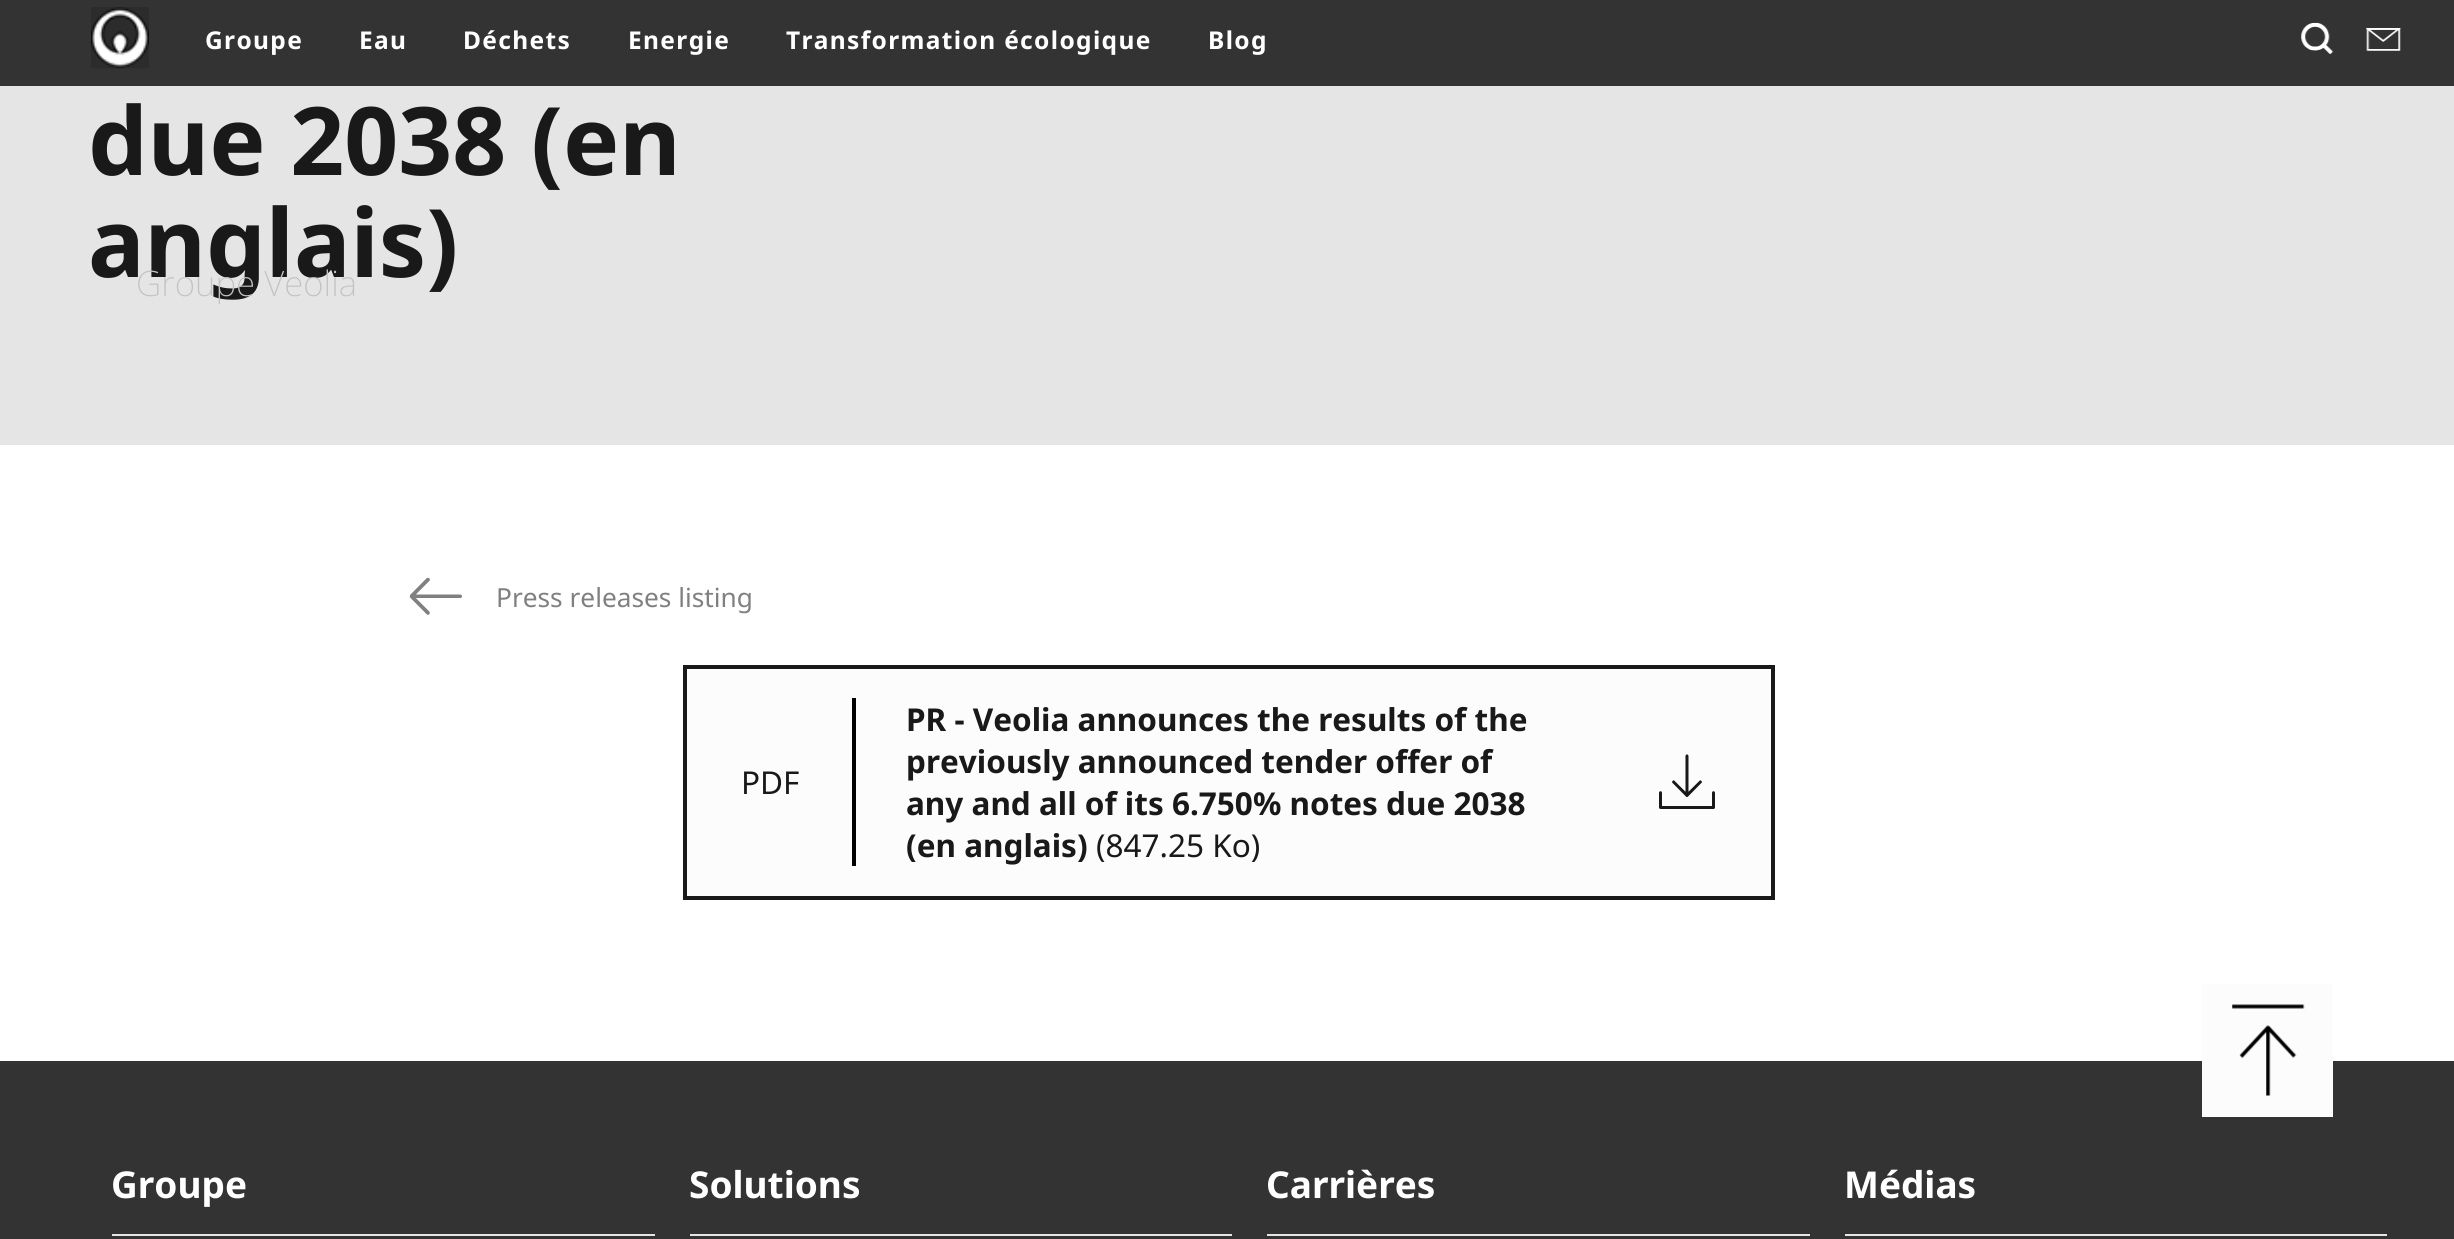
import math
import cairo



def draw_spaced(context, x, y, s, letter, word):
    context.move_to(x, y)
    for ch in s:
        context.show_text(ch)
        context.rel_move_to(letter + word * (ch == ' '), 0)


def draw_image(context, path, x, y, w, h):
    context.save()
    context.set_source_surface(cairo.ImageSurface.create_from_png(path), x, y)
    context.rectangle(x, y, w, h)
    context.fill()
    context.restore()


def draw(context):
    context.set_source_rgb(1, 1, 1)
    context.paint()
    context.set_source_rgb(51 / 255, 51 / 255, 51 / 255)
    context.rectangle(0, 0, 2454, 86)
    context.fill()
    draw_image(context, "images/1.png", 91, 7, 58, 62)
    draw_image(context, "images/2.png", 2301, 22, 33, 32)
    draw_image(context, "images/3.png", 2366, 28, 36, 23)
    context.set_source_rgb(229 / 255, 229 / 255, 229 / 255)
    context.rectangle(0, 86, 2454, 359)
    context.fill()
    draw_image(context, "images/4.png", 409, 577, 53, 38)
    context.set_source_rgb(252 / 255, 252 / 255, 252 / 255)
    context.rectangle(685, 667, 1088, 231)
    context.fill_preserve()
    context.set_source_rgb(25 / 255, 25 / 255, 25 / 255)
    context.set_line_width(4)
    context.stroke()
    context.set_source_rgb(0, 0, 0)
    context.rectangle(852, 698, 4, 168)
    context.fill()
    draw_image(context, "images/5.png", 1659, 754, 56, 55)
    context.set_source_rgb(51 / 255, 51 / 255, 51 / 255)
    context.rectangle(0, 1061, 2454, 178)
    context.fill()
    context.set_source_rgb(229 / 255, 229 / 255, 229 / 255)
    context.rectangle(112, 1234, 543, 2)
    context.fill()
    context.rectangle(690, 1234, 542, 2)
    context.fill()
    context.rectangle(1267, 1234, 543, 2)
    context.fill()
    context.rectangle(1845, 1234, 542, 2)
    context.fill()
    context.set_source_rgb(252 / 255, 252 / 255, 252 / 255)
    context.rectangle(2202, 984, 131, 133)
    context.fill()
    draw_image(context, "images/6.png", 2232, 1004, 73, 92)
    context.select_font_face("Noto Sans", cairo.FontSlant.NORMAL, cairo.FontWeight.BOLD)
    context.set_font_size(24.5)
    context.set_source_rgb(1, 1, 1)
    draw_spaced(context, 205, 49, "Groupe", 1.35, 0)
    draw_spaced(context, 359, 49, "Eau", 1.35, 0)
    draw_spaced(context, 463, 49, "Déchets", 1.35, 0)
    draw_spaced(context, 628, 49, "Energie", 1.35, 0)
    draw_spaced(context, 786, 49, "Transformation écologique", 1.35, 0)
    draw_spaced(context, 1208, 49, "Blog", 1.35, 0)
    context.set_font_size(94.5)
    context.set_source_rgb(25 / 255, 25 / 255, 25 / 255)
    context.move_to(88, 175)
    context.show_text("due 2038 (en")
    context.move_to(88, 277)
    context.show_text("anglais)")
    context.select_font_face("Noto Sans ExtraLight")
    context.set_font_size(35)
    context.set_source_rgb(195 / 255, 195 / 255, 195 / 255)
    context.move_to(136, 296)
    context.show_text("Groupe Veolia")
    context.select_font_face("Noto Sans")
    context.set_font_size(26.25)
    context.set_source_rgb(128 / 255, 128 / 255, 128 / 255)
    context.move_to(496, 607)
    context.show_text("Press releases listing")
    context.set_font_size(31.5)
    context.set_source_rgb(25 / 255, 25 / 255, 25 / 255)
    context.move_to(741, 794)
    context.show_text("PDF")
    context.select_font_face("Noto Sans", cairo.FontSlant.NORMAL, cairo.FontWeight.BOLD)
    context.move_to(906, 731)
    context.show_text("PR - Veolia announces the results of the")
    context.move_to(906, 773)
    context.show_text("previously announced tender offer of")
    context.move_to(906, 815)
    context.show_text("any and all of its 6.750% notes due 2038")
    context.move_to(906, 857)
    context.show_text("(en anglais)")
    context.select_font_face("Noto Sans")
    context.move_to(1096, 857)
    context.show_text("(847.25 Ko)")
    context.select_font_face("Noto Sans", cairo.FontSlant.NORMAL, cairo.FontWeight.BOLD)
    context.set_font_size(37)
    context.set_source_rgb(1, 1, 1)
    context.move_to(111, 1198)
    context.show_text("Groupe")
    context.move_to(689, 1198)
    context.show_text("Solutions")
    context.move_to(1266, 1198)
    context.show_text("Carrières")
    context.move_to(1844, 1198)
    context.show_text("Médias")


surface = cairo.ImageSurface(cairo.Format.RGB24, 2454, 1239)
context = cairo.Context(surface)
options = cairo.FontOptions()
options.set_hint_metrics(cairo.HintMetrics.OFF)
options.set_hint_style(cairo.HintStyle.NONE)
context.set_font_options(options)
context.set_miter_limit(4)
draw(context)
surface.write_to_png("out.png")
